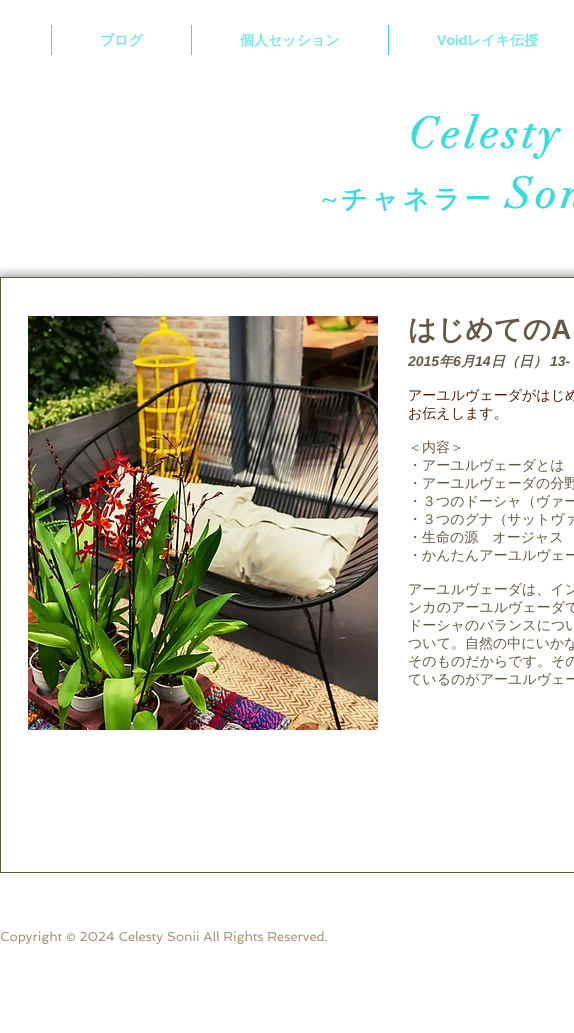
import math
import cairo



def draw_spaced(context, x, y, s, letter, word):
    context.move_to(x, y)
    for ch in s:
        context.show_text(ch)
        context.rel_move_to(letter + word * (ch == ' '), 0)


def draw_image(context, path, x, y, w, h):
    context.save()
    context.set_source_surface(cairo.ImageSurface.create_from_png(path), x, y)
    context.rectangle(x, y, w, h)
    context.fill()
    context.restore()


def draw(context):
    context.set_source_rgb(1, 1, 1)
    context.paint()
    context.set_source_rgb(55 / 255, 221 / 255, 221 / 255)
    context.rectangle(51, 25, 1, 30)
    context.fill()
    context.rectangle(191, 25, 1, 30)
    context.fill()
    context.rectangle(388, 25, 1, 30)
    context.fill()
    draw_image(context, "images/1.png", 0, 267, 35, 10)
    draw_image(context, "images/2.png", 35, 267, 539, 10)
    context.rectangle(0.5, 277.5, 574, 595)
    context.set_source_rgb(100 / 255, 88 / 255, 68 / 255)
    context.set_line_width(1)
    context.stroke()
    draw_image(context, "images/3.png", 28, 316, 350, 414)
    context.select_font_face("WenQuanYi Zen Hei", cairo.FontSlant.NORMAL, cairo.FontWeight.BOLD)
    context.set_font_size(14)
    context.set_source_rgb(113 / 255, 232 / 255, 232 / 255)
    context.move_to(100, 45)
    context.show_text("ブログ")
    context.move_to(240, 45)
    context.show_text("個人セッション")
    context.select_font_face("Raleway", cairo.FontSlant.NORMAL, cairo.FontWeight.BOLD)
    context.move_to(437, 45)
    context.show_text("Void")
    context.select_font_face("WenQuanYi Zen Hei", cairo.FontSlant.NORMAL, cairo.FontWeight.BOLD)
    context.move_to(467, 45)
    context.show_text("レイキ伝授")
    context.select_font_face("didot", cairo.FontSlant.NORMAL, cairo.FontWeight.BOLD)
    context.set_font_size(43)
    context.set_source_rgb(55 / 255, 221 / 255, 221 / 255)
    draw_spaced(context, 409, 148, "Celesty", 4.25, 0)
    context.set_font_size(26)
    draw_spaced(context, 321, 208, "~", 4.25, 0)
    context.select_font_face("WenQuanYi Zen Hei", cairo.FontSlant.NORMAL, cairo.FontWeight.BOLD)
    draw_spaced(context, 341, 208, "チャネラー", 4.25, 0)
    context.select_font_face("didot", cairo.FontSlant.NORMAL, cairo.FontWeight.BOLD)
    context.set_font_size(43)
    draw_spaced(context, 506, 208, "Son", 4.25, 0)
    context.select_font_face("WenQuanYi Zen Hei", cairo.FontSlant.NORMAL, cairo.FontWeight.BOLD)
    context.set_font_size(28)
    context.set_source_rgb(100 / 255, 88 / 255, 68 / 255)
    context.move_to(408, 339)
    context.show_text("はじめての")
    context.select_font_face("Liberation Sans", cairo.FontSlant.NORMAL, cairo.FontWeight.BOLD)
    context.move_to(551, 339)
    context.show_text("A")
    context.select_font_face("Liberation Sans", cairo.FontSlant.ITALIC, cairo.FontWeight.BOLD)
    context.set_font_size(14)
    context.move_to(408, 366)
    context.show_text("2015")
    context.select_font_face("WenQuanYi Zen Hei", cairo.FontSlant.ITALIC, cairo.FontWeight.BOLD)
    context.move_to(439, 366)
    context.show_text("年")
    context.select_font_face("Liberation Sans", cairo.FontSlant.ITALIC, cairo.FontWeight.BOLD)
    context.move_to(453, 366)
    context.show_text("6")
    context.select_font_face("WenQuanYi Zen Hei", cairo.FontSlant.ITALIC, cairo.FontWeight.BOLD)
    context.move_to(461, 366)
    context.show_text("月")
    context.select_font_face("Liberation Sans", cairo.FontSlant.ITALIC, cairo.FontWeight.BOLD)
    context.move_to(475, 366)
    context.show_text("14")
    context.select_font_face("WenQuanYi Zen Hei", cairo.FontSlant.ITALIC, cairo.FontWeight.BOLD)
    context.move_to(491, 366)
    context.show_text("日（日）")
    context.select_font_face("Liberation Sans", cairo.FontSlant.ITALIC, cairo.FontWeight.BOLD)
    context.move_to(550, 366)
    context.show_text("13-")
    context.select_font_face("WenQuanYi Zen Hei Medium")
    context.set_source_rgb(70 / 255, 30 / 255, 9 / 255)
    context.move_to(408, 400)
    context.show_text("アーユルヴェーダがはじめ")
    context.move_to(408, 418)
    context.show_text("お伝えします。")
    context.set_source_rgb(100 / 255, 88 / 255, 68 / 255)
    context.move_to(408, 452)
    context.show_text("＜内容＞")
    context.move_to(408, 470)
    context.show_text("・アーユルヴェーダとは")
    context.move_to(408, 488)
    context.show_text("・アーユルヴェーダの分野")
    context.move_to(408, 506)
    context.show_text("・３つのドーシャ（ヴァー")
    context.move_to(408, 524)
    context.show_text("・３つのグナ（サットヴァ")
    context.move_to(408, 542)
    context.show_text("・生命の源　オージャス")
    context.move_to(408, 560)
    context.show_text("・かんたんアーユルヴェー")
    context.move_to(408, 594)
    context.show_text("アーユルヴェーダは、イン")
    context.move_to(408, 612)
    context.show_text("ンカのアーユルヴェーダで")
    context.move_to(408, 630)
    context.show_text("ドーシャのバランスについ")
    context.move_to(408, 648)
    context.show_text("ついて。自然の中にいかな")
    context.move_to(408, 666)
    context.show_text("そのものだからです。その")
    context.move_to(408, 684)
    context.show_text("ているのがアーユルヴェー")
    context.select_font_face("Spinnaker")
    context.set_font_size(13)
    context.set_source_rgb(166 / 255, 147 / 255, 118 / 255)
    context.move_to(0, 941)
    context.show_text("Copyright © 2024 Celesty Sonii All Rights Reserved.")


surface = cairo.ImageSurface(cairo.Format.RGB24, 574, 1033)
context = cairo.Context(surface)
options = cairo.FontOptions()
options.set_hint_metrics(cairo.HintMetrics.OFF)
options.set_hint_style(cairo.HintStyle.NONE)
context.set_font_options(options)
context.set_miter_limit(4)
draw(context)
surface.write_to_png("out.png")
